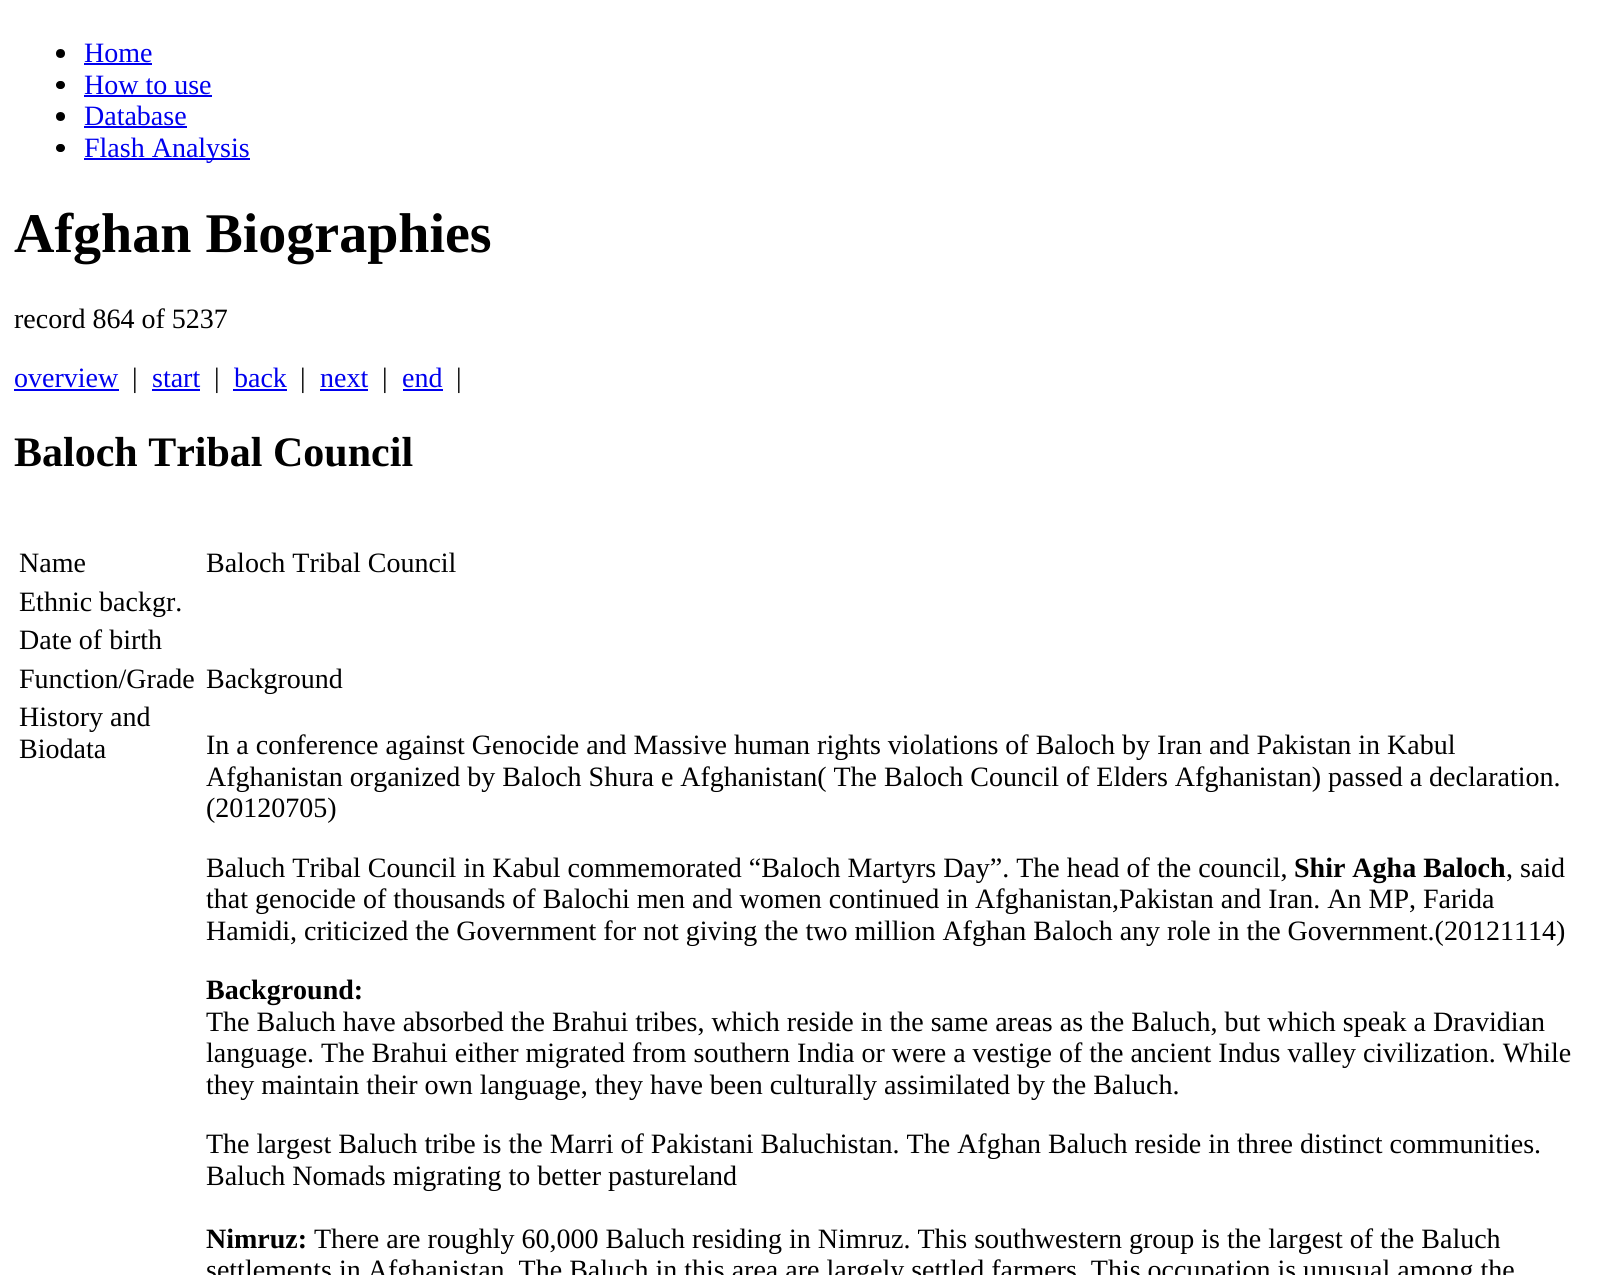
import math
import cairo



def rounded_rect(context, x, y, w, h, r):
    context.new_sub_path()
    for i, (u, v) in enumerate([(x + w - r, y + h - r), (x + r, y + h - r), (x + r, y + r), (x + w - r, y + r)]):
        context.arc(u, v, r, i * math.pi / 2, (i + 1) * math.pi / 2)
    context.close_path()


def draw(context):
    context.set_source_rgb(1, 1, 1)
    context.paint()
    context.set_source_rgb(0, 0, 0)
    context.arc(60.5, 53.5, 4.5, 0, 2 * math.pi)
    context.fill()
    context.set_source_rgb(0, 0, 238 / 255)
    context.rectangle(84, 63, 68, 2)
    context.fill()
    context.set_source_rgb(0, 0, 0)
    rounded_rect(context, 56, 81, 9, 8, 4)
    context.fill()
    context.set_source_rgb(0, 0, 238 / 255)
    context.rectangle(84, 95, 128, 2)
    context.fill()
    context.set_source_rgb(0, 0, 0)
    context.arc(60.5, 116.5, 4.5, 0, 2 * math.pi)
    context.fill()
    context.set_source_rgb(0, 0, 238 / 255)
    context.rectangle(84, 126, 103, 2)
    context.fill()
    context.set_source_rgb(0, 0, 0)
    rounded_rect(context, 56, 144, 9, 8, 4)
    context.fill()
    context.set_source_rgb(0, 0, 238 / 255)
    context.rectangle(84, 158, 166, 2)
    context.fill()
    context.rectangle(14, 389, 105, 2)
    context.fill()
    context.rectangle(152, 389, 48, 2)
    context.fill()
    context.rectangle(233, 389, 54, 2)
    context.fill()
    context.rectangle(320, 389, 48, 2)
    context.fill()
    context.rectangle(403, 389, 40, 2)
    context.fill()
    context.select_font_face("Liberation Serif")
    context.set_font_size(28)
    context.move_to(84, 62)
    context.show_text("Home")
    context.move_to(84, 94)
    context.show_text("How to use")
    context.move_to(84, 125)
    context.show_text("Database")
    context.move_to(84, 157)
    context.show_text("Flash Analysis")
    context.select_font_face("Liberation Serif", cairo.FontSlant.NORMAL, cairo.FontWeight.BOLD)
    context.set_font_size(56)
    context.set_source_rgb(0, 0, 0)
    context.move_to(14, 252)
    context.show_text("Afghan Biographies")
    context.select_font_face("Liberation Serif")
    context.set_font_size(28)
    context.move_to(14, 328)
    context.show_text("record 864 of 5237")
    context.set_source_rgb(0, 0, 238 / 255)
    context.move_to(14, 387)
    context.show_text("overview")
    context.set_source_rgb(0, 0, 0)
    context.move_to(132, 387)
    context.show_text("|")
    context.set_source_rgb(0, 0, 238 / 255)
    context.move_to(152, 387)
    context.show_text("start")
    context.set_source_rgb(0, 0, 0)
    context.move_to(214, 387)
    context.show_text("|")
    context.set_source_rgb(0, 0, 238 / 255)
    context.move_to(234, 387)
    context.show_text("back")
    context.set_source_rgb(0, 0, 0)
    context.move_to(300, 387)
    context.show_text("|")
    context.set_source_rgb(0, 0, 238 / 255)
    context.move_to(320, 387)
    context.show_text("next")
    context.set_source_rgb(0, 0, 0)
    context.move_to(382, 387)
    context.show_text("|")
    context.set_source_rgb(0, 0, 238 / 255)
    context.move_to(402, 387)
    context.show_text("end")
    context.set_source_rgb(0, 0, 0)
    context.move_to(456, 387)
    context.show_text("|")
    context.select_font_face("Liberation Serif", cairo.FontSlant.NORMAL, cairo.FontWeight.BOLD)
    context.set_font_size(42)
    context.move_to(14, 466)
    context.show_text("Baloch Tribal Council")
    context.select_font_face("Liberation Serif")
    context.set_font_size(28)
    context.move_to(19, 572)
    context.show_text("Name")
    context.move_to(206, 572)
    context.show_text("Baloch Tribal Council")
    context.move_to(19, 611)
    context.show_text("Ethnic backgr.")
    context.move_to(19, 649)
    context.show_text("Date of birth")
    context.move_to(19, 688)
    context.show_text("Function/Grade")
    context.move_to(206, 688)
    context.show_text("Background")
    context.move_to(19, 726)
    context.show_text("History and")
    context.move_to(19, 758)
    context.show_text("Biodata")
    context.move_to(206, 754)
    context.show_text("In a conference against Genocide and Massive human rights violations of Baloch by Iran and Pakistan in Kabul")
    context.move_to(206, 786)
    context.show_text("Afghanistan organized by Baloch Shura e Afghanistan( The Baloch Council of Elders Afghanistan) passed a declaration.")
    context.move_to(206, 817)
    context.show_text("(20120705)")
    context.move_to(206, 877)
    context.show_text("Baluch Tribal Council in Kabul commemorated “Baloch Martyrs Day”. The head of the council,")
    context.select_font_face("Liberation Serif", cairo.FontSlant.NORMAL, cairo.FontWeight.BOLD)
    context.move_to(1294, 877)
    context.show_text("Shir Agha Baloch")
    context.select_font_face("Liberation Serif")
    context.move_to(1506, 877)
    context.show_text(", said")
    context.move_to(206, 908)
    context.show_text("that genocide of thousands of Balochi men and women continued in Afghanistan,Pakistan and Iran. An MP, Farida")
    context.move_to(206, 940)
    context.show_text("Hamidi, criticized the Government for not giving the two million Afghan Baloch any role in the Government.(20121114)")
    context.select_font_face("Liberation Serif", cairo.FontSlant.NORMAL, cairo.FontWeight.BOLD)
    context.move_to(206, 999)
    context.show_text("Background:")
    context.select_font_face("Liberation Serif")
    context.move_to(206, 1031)
    context.show_text("The Baluch have absorbed the Brahui tribes, which reside in the same areas as the Baluch, but which speak a Dravidian")
    context.move_to(206, 1062)
    context.show_text("language. The Brahui either migrated from southern India or were a vestige of the ancient Indus valley civilization. While")
    context.move_to(206, 1094)
    context.show_text("they maintain their own language, they have been culturally assimilated by the Baluch.")
    context.move_to(206, 1153)
    context.show_text("The largest Baluch tribe is the Marri of Pakistani Baluchistan. The Afghan Baluch reside in three distinct communities.")
    context.move_to(206, 1185)
    context.show_text("Baluch Nomads migrating to better pastureland")
    context.select_font_face("Liberation Serif", cairo.FontSlant.NORMAL, cairo.FontWeight.BOLD)
    context.move_to(206, 1248)
    context.show_text("Nimruz:")
    context.select_font_face("Liberation Serif")
    context.move_to(314, 1248)
    context.show_text("There are roughly 60,000 Baluch residing in Nimruz. This southwestern group is the largest of the Baluch")
    context.move_to(206, 1279)
    context.show_text("settlements in Afghanistan. The Baluch in this area are largely settled farmers. This occupation is unusual among the")


surface = cairo.ImageSurface(cairo.Format.RGB24, 1606, 1275)
context = cairo.Context(surface)
options = cairo.FontOptions()
options.set_hint_metrics(cairo.HintMetrics.OFF)
options.set_hint_style(cairo.HintStyle.NONE)
context.set_font_options(options)
context.set_miter_limit(4)
draw(context)
surface.write_to_png("out.png")
